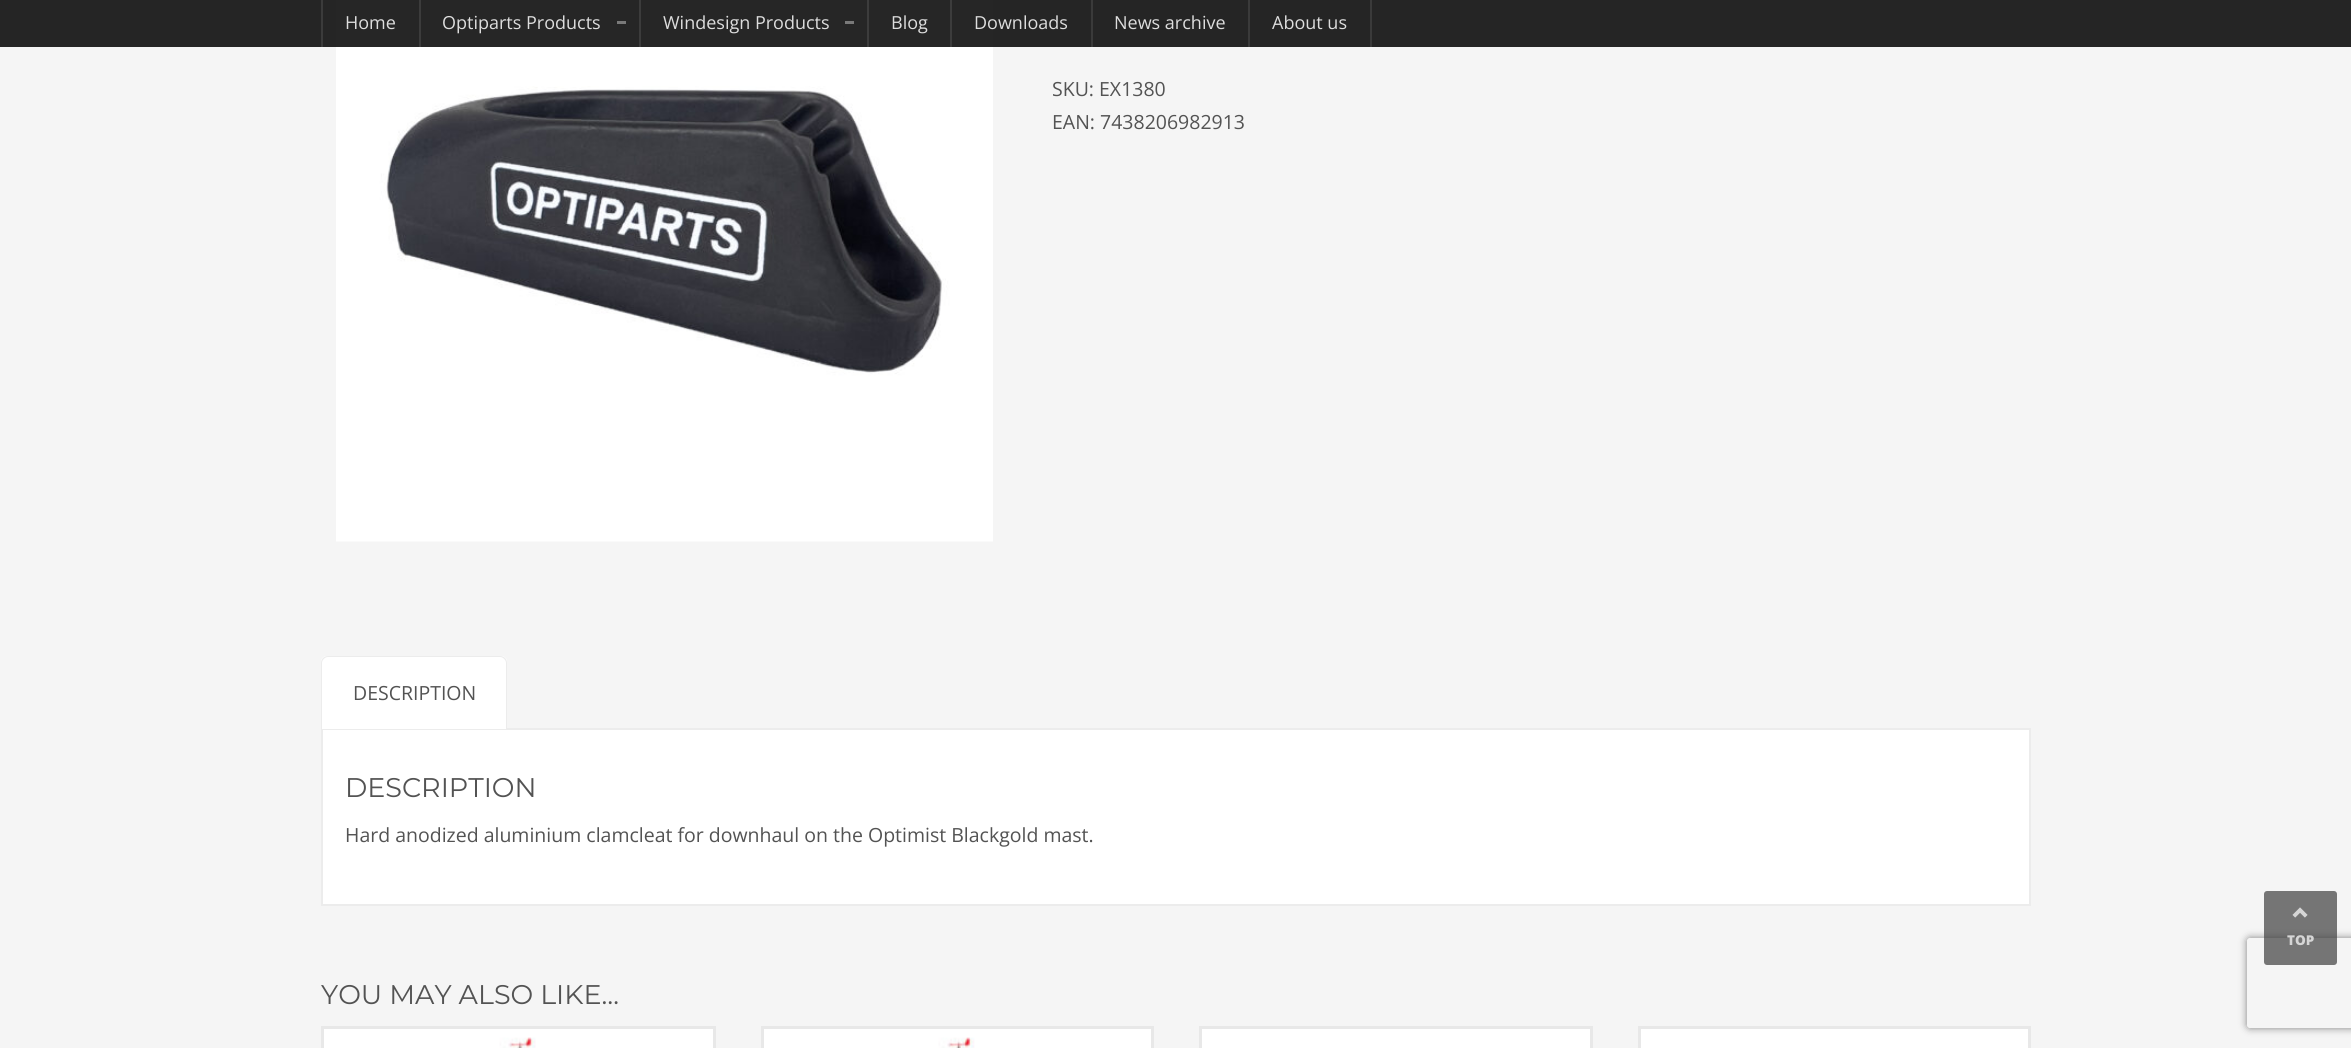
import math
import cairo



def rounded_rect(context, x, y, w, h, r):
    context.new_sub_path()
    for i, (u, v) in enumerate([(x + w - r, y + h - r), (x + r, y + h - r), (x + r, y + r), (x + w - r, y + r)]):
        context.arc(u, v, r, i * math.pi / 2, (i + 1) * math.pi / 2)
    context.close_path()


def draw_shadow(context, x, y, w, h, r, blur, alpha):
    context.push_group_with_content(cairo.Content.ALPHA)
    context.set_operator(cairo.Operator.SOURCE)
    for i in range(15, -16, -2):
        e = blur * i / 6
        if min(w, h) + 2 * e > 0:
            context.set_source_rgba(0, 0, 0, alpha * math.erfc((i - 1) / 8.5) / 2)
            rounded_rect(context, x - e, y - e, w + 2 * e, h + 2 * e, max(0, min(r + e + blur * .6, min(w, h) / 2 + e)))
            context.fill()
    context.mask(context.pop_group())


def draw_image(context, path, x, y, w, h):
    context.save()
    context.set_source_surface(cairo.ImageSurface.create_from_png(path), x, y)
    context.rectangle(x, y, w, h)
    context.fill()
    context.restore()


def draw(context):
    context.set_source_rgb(245 / 255, 245 / 255, 245 / 255)
    context.paint()
    draw_image(context, "images/1.png", 336, 0, 657, 542)
    context.set_source_rgba(0, 0, 0, 0.85)
    context.rectangle(0, 0, 2351, 47)
    context.fill()
    context.set_source_rgb(59 / 255, 59 / 255, 59 / 255)
    context.rectangle(321, 0, 2, 47)
    context.fill()
    context.set_source_rgb(60 / 255, 60 / 255, 60 / 255)
    context.rectangle(419, 0, 2, 47)
    context.fill()
    context.set_source_rgb(121 / 255, 121 / 255, 121 / 255)
    context.rectangle(617, 21, 9, 3)
    context.fill()
    context.set_source_rgb(60 / 255, 60 / 255, 60 / 255)
    context.rectangle(639, 0, 2, 47)
    context.fill()
    context.set_source_rgb(121 / 255, 121 / 255, 121 / 255)
    context.rectangle(845, 21, 9, 3)
    context.fill()
    context.set_source_rgb(60 / 255, 60 / 255, 60 / 255)
    context.rectangle(867, 0, 2, 47)
    context.fill()
    context.rectangle(950, 0, 2, 47)
    context.fill()
    context.set_source_rgba(1, 1, 1, 0.1)
    context.rectangle(1091, 0, 2, 47)
    context.fill()
    context.rectangle(1370, 0, 2, 47)
    context.fill()
    context.rectangle(1248, 0, 2, 47)
    context.fill()
    context.set_source_rgb(1, 1, 1)
    context.rectangle(322, 729, 1708, 176)
    context.fill_preserve()
    context.set_source_rgb(236 / 255, 236 / 255, 236 / 255)
    context.stroke()
    context.set_source_rgb(1, 1, 1)
    context.new_path()
    context.move_to(327, 656)
    context.line_to(501, 656)
    context.curve_to(504.5, 656, 507, 658.5, 507, 662)
    context.line_to(507, 729)
    context.line_to(321, 729)
    context.line_to(321, 662)
    context.curve_to(321, 658.5, 323.5, 656, 327, 656)
    context.close_path()
    context.fill()
    context.set_source_rgb(236 / 255, 236 / 255, 236 / 255)
    context.set_fill_rule(cairo.FillRule.EVEN_ODD)
    context.new_path()
    context.move_to(328, 656)
    context.line_to(500, 656)
    context.curve_to(504, 656, 507, 659, 507, 663)
    context.line_to(507, 729)
    context.line_to(321, 729)
    context.line_to(321, 663)
    context.curve_to(321, 659, 324, 656, 328, 656)
    context.close_path()
    context.move_to(328, 657)
    context.line_to(500, 657)
    context.curve_to(503, 657, 506, 660, 506, 663)
    context.line_to(506, 729)
    context.line_to(322, 729)
    context.line_to(322, 663)
    context.curve_to(322, 660, 325, 657, 328, 657)
    context.close_path()
    context.fill()
    draw_image(context, "images/2.png", 324, 1029, 389, 19)
    context.rectangle(322.5, 1027.5, 392, 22)
    context.set_source_rgb(232 / 255, 232 / 255, 232 / 255)
    context.set_line_width(3)
    context.stroke()
    draw_image(context, "images/3.png", 764, 1029, 387, 19)
    context.rectangle(762.5, 1027.5, 390, 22)
    context.stroke()
    context.set_source_rgb(1, 1, 1)
    context.rectangle(1200.5, 1027.5, 391, 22)
    context.fill_preserve()
    context.set_source_rgb(232 / 255, 232 / 255, 232 / 255)
    context.stroke()
    context.set_source_rgb(1, 1, 1)
    context.rectangle(1639.5, 1027.5, 390, 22)
    context.fill_preserve()
    context.set_source_rgb(232 / 255, 232 / 255, 232 / 255)
    context.stroke()
    context.save()
    context.new_path()
    context.move_to(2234, 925)
    context.line_to(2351, 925)
    context.line_to(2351, 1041)
    context.line_to(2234, 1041)
    context.close_path()
    context.move_to(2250, 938)
    context.line_to(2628, 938)
    context.curve_to(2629.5, 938, 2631, 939.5, 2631, 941)
    context.line_to(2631, 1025)
    context.curve_to(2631, 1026.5, 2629.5, 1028, 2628, 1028)
    context.line_to(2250, 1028)
    context.curve_to(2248.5, 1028, 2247, 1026.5, 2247, 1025)
    context.line_to(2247, 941)
    context.curve_to(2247, 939.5, 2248.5, 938, 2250, 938)
    context.close_path()
    context.clip()
    context.set_source_rgb(128 / 255, 128 / 255, 128 / 255)
    draw_shadow(context, 2247, 938, 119, 90, 3, 4, 1)
    context.restore()
    context.set_source_rgba(64 / 255, 64 / 255, 64 / 255, 0.7)
    rounded_rect(context, 2264, 891, 73, 74, 3)
    context.fill()
    draw_image(context, "images/4.png", 2292, 907, 16, 11)
    context.select_font_face("Open Sans")
    context.set_font_size(18)
    context.set_source_rgb(221 / 255, 221 / 255, 221 / 255)
    context.move_to(345, 29)
    context.show_text("Home")
    context.move_to(442, 29)
    context.show_text("Optiparts Products")
    context.move_to(663, 29)
    context.show_text("Windesign Products")
    context.move_to(891, 29)
    context.show_text("Blog")
    context.move_to(974, 29)
    context.show_text("Downloads")
    context.move_to(1114, 29)
    context.show_text("News archive")
    context.move_to(1272, 29)
    context.show_text("About us")
    context.set_font_size(19.5)
    context.set_source_rgb(83 / 255, 83 / 255, 83 / 255)
    context.move_to(1052, 96)
    context.show_text("SKU: EX1380")
    context.move_to(1052, 129)
    context.show_text("EAN: 7438206982913")
    context.move_to(353, 700)
    context.show_text("DESCRIPTION")
    context.select_font_face("Montserrat")
    context.set_font_size(27)
    context.move_to(345, 797)
    context.show_text("DESCRIPTION")
    context.select_font_face("Open Sans")
    context.set_font_size(19.5)
    context.move_to(345, 842)
    context.show_text("Hard anodized aluminium clamcleat for downhaul on the Optimist Blackgold mast.")
    context.select_font_face("Montserrat")
    context.set_font_size(27)
    context.move_to(321, 1004)
    context.show_text("YOU MAY ALSO LIKE…")
    context.select_font_face("Open Sans ExtraBold")
    context.set_font_size(13.5)
    context.set_source_rgb(213 / 255, 213 / 255, 213 / 255)
    context.move_to(2287, 945)
    context.show_text("TOP")


surface = cairo.ImageSurface(cairo.Format.RGB24, 2351, 1048)
context = cairo.Context(surface)
options = cairo.FontOptions()
options.set_hint_metrics(cairo.HintMetrics.OFF)
options.set_hint_style(cairo.HintStyle.NONE)
context.set_font_options(options)
context.set_miter_limit(4)
draw(context)
surface.write_to_png("out.png")
